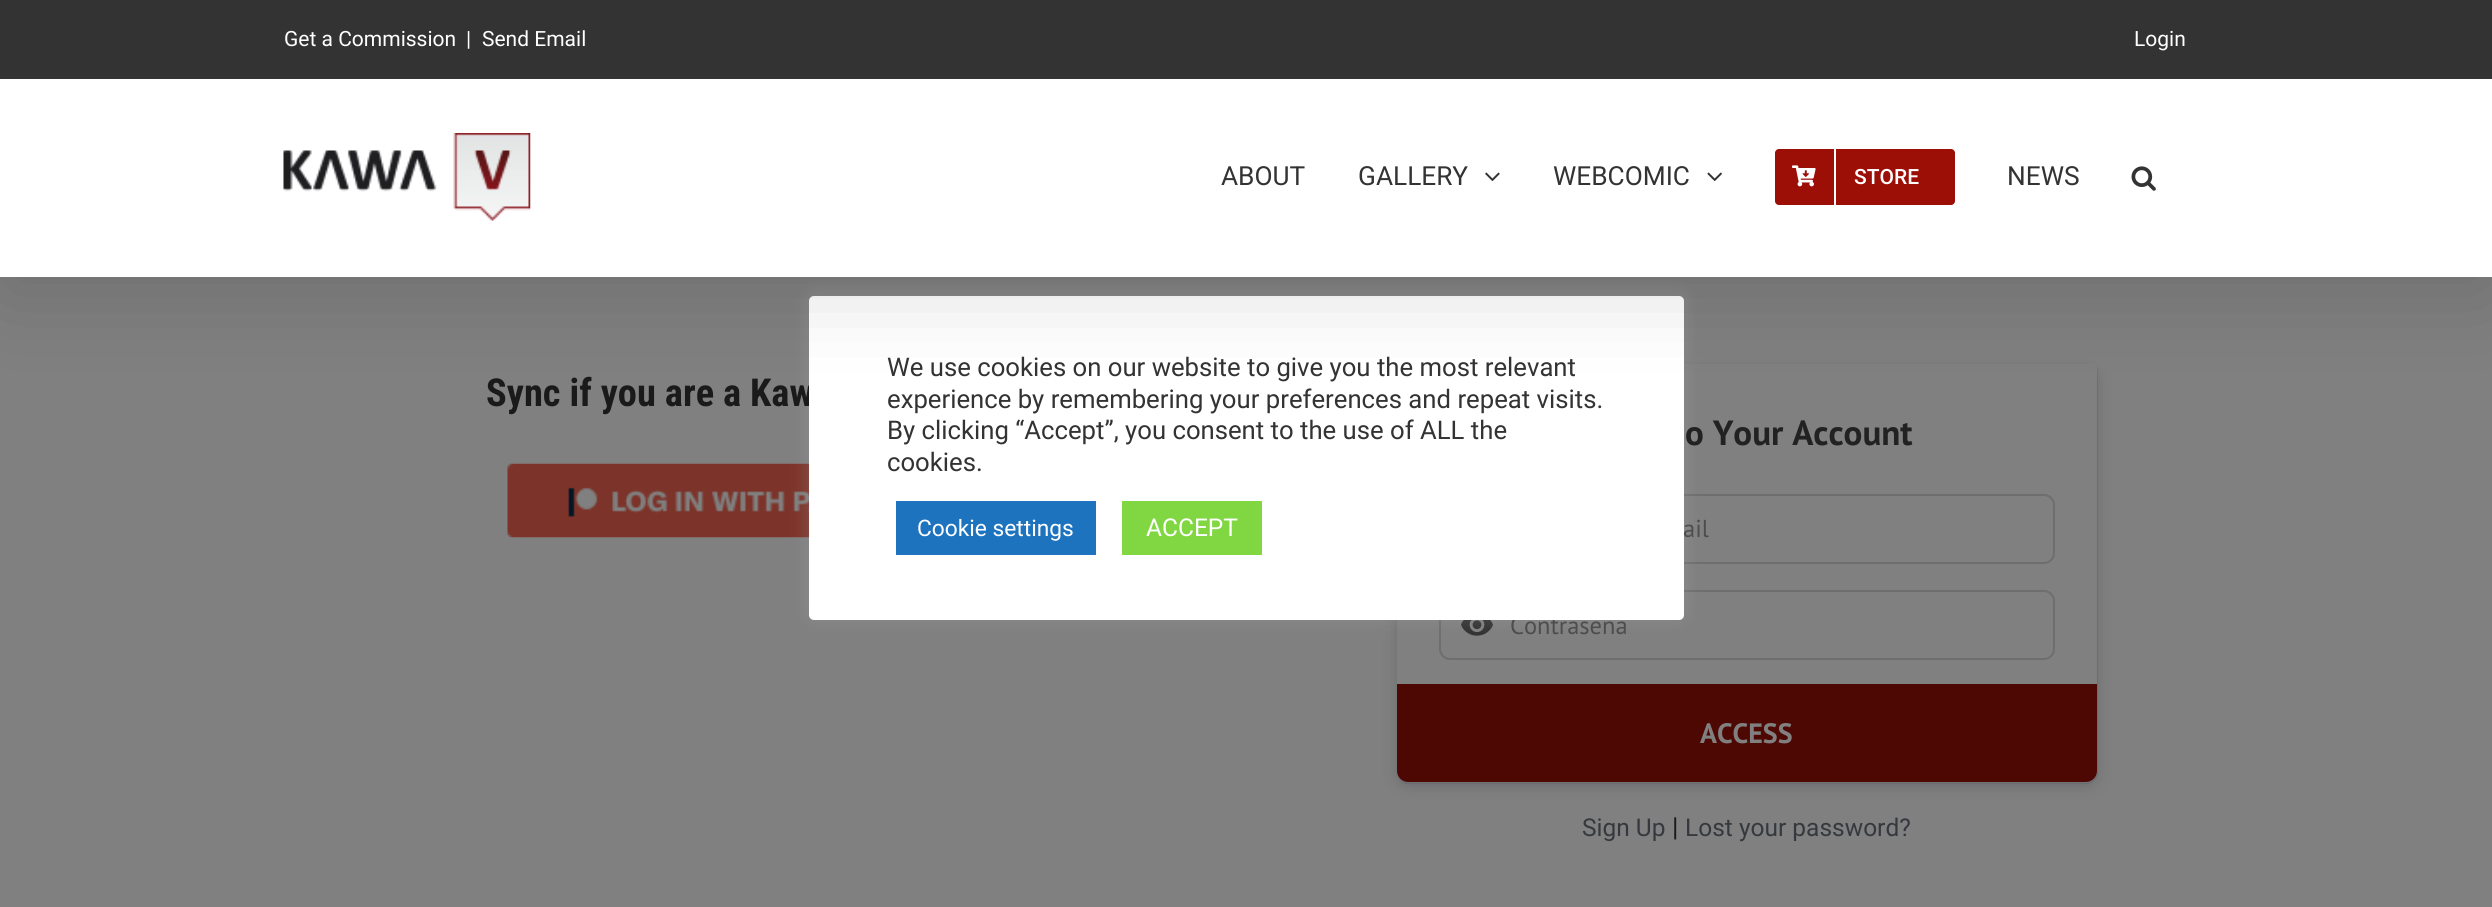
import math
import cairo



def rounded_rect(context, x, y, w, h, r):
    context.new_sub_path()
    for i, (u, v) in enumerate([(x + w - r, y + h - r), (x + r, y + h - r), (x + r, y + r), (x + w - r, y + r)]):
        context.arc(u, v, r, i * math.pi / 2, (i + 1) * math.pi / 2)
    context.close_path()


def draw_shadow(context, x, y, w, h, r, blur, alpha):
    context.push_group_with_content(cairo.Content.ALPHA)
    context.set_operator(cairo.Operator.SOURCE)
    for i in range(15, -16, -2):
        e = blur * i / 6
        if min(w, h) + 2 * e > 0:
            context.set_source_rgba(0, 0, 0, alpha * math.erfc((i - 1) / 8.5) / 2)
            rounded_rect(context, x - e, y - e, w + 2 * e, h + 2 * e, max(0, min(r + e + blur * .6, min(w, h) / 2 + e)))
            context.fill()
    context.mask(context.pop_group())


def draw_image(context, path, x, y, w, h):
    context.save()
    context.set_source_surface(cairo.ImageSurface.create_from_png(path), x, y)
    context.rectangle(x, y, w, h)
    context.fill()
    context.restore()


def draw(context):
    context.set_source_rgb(128 / 255, 128 / 255, 128 / 255)
    context.paint()
    draw_image(context, "images/6.png", 507, 463, 302, 75)
    context.set_source_rgb(25 / 255, 28 / 255, 45 / 255)
    draw_shadow(context, 1397, 368, 700, 418, 11, 7, 0.2)
    context.new_path()
    context.move_to(1404, 364.5)
    context.line_to(2091, 364.5)
    context.curve_to(2094.5, 364.5, 2097.5, 367.5, 2097.5, 371)
    context.line_to(2097.5, 772)
    context.curve_to(2097.5, 778.5, 2092.5, 783.5, 2086, 783.5)
    context.line_to(1409, 783.5)
    context.curve_to(1402.5, 783.5, 1397.5, 778.5, 1397.5, 772)
    context.line_to(1397.5, 371)
    context.curve_to(1397.5, 367.5, 1400.5, 364.5, 1404, 364.5)
    context.close_path()
    context.set_source_rgba(0, 10 / 255, 20 / 255, 0.1)
    context.set_line_width(0.9)
    context.stroke()
    context.set_source_rgb(128 / 255, 128 / 255, 128 / 255)
    context.new_path()
    context.move_to(1402, 364)
    context.line_to(2092, 364)
    context.curve_to(2095, 364, 2097, 366, 2097, 369)
    context.line_to(2097, 771)
    context.curve_to(2097, 777, 2092, 782, 2086, 782)
    context.line_to(1408, 782)
    context.curve_to(1402, 782, 1397, 777, 1397, 771)
    context.line_to(1397, 369)
    context.curve_to(1397, 366, 1399, 364, 1402, 364)
    context.close_path()
    context.fill()
    rounded_rect(context, 1440, 495, 614, 68, 10)
    context.set_source_rgb(110 / 255, 110 / 255, 110 / 255)
    context.set_line_width(2)
    context.stroke()
    rounded_rect(context, 1440, 591, 614, 68, 10)
    context.stroke()
    draw_image(context, "images/7.png", 1461, 620, 32, 16)
    context.set_source_rgb(78 / 255, 8 / 255, 3 / 255)
    context.new_path()
    context.move_to(1397, 684)
    context.line_to(2097, 684)
    context.line_to(2097, 771)
    context.curve_to(2097, 777, 2092, 782, 2086, 782)
    context.line_to(1408, 782)
    context.curve_to(1402, 782, 1397, 777, 1397, 771)
    context.close_path()
    context.fill()
    context.set_source_rgb(172 / 255, 171 / 255, 171 / 255)
    draw_shadow(context, 809, 294, 875, 324, 5, 9, 0.3)
    context.select_font_face("Roboto Condensed", cairo.FontSlant.NORMAL, cairo.FontWeight.BOLD)
    context.set_font_size(38.5)
    context.set_source_rgb(26 / 255, 26 / 255, 26 / 255)
    context.move_to(486, 406)
    context.show_text("Sync if you are a Kaw")
    context.select_font_face("PT Sans", cairo.FontSlant.NORMAL, cairo.FontWeight.BOLD)
    context.set_font_size(35)
    context.set_source_rgb(34 / 255, 34 / 255, 34 / 255)
    context.move_to(1685, 445)
    context.show_text("o Your Account")
    context.select_font_face("PT Sans")
    context.set_font_size(24.5)
    context.set_source_rgb(77 / 255, 77 / 255, 77 / 255)
    context.move_to(1683, 537)
    context.show_text("ail")
    context.move_to(1510, 634)
    context.show_text("Contraseña")
    context.select_font_face("PT Sans", cairo.FontSlant.NORMAL, cairo.FontWeight.BOLD)
    context.set_font_size(28)
    context.set_source_rgb(128 / 255, 128 / 255, 128 / 255)
    context.move_to(1700, 743)
    context.show_text("ACCESS")
    context.select_font_face("Roboto")
    context.set_font_size(24.5)
    context.set_source_rgb(53 / 255, 57 / 255, 61 / 255)
    context.move_to(1582, 836)
    context.show_text("Sign Up")
    context.set_font_size(26.25)
    context.set_source_rgb(26 / 255, 26 / 255, 26 / 255)
    context.move_to(1672, 836)
    context.show_text("|")
    context.set_font_size(24.5)
    context.set_source_rgb(53 / 255, 57 / 255, 61 / 255)
    context.move_to(1685, 836)
    context.show_text("Lost your password?")
    context.set_source_rgb(1, 1, 1)
    rounded_rect(context, 809, 296, 875, 324, 5)
    context.fill()
    context.set_source_rgb(0, 0, 0)
    draw_shadow(context, 4, 21, 2485, 270, 0, 44, 0.14)
    context.set_source_rgb(51 / 255, 51 / 255, 51 / 255)
    context.rectangle(0, 0, 2492, 79)
    context.fill()
    context.set_font_size(21)
    context.set_source_rgb(1, 1, 1)
    context.move_to(2134, 46)
    context.show_text("Login")
    context.rectangle(0, 79, 2492, 198)
    context.fill()
    draw_image(context, "images/5.png", 2131, 166, 25, 25)
    context.set_font_size(26.25)
    context.set_source_rgb(51 / 255, 51 / 255, 51 / 255)
    context.move_to(2007, 185)
    context.show_text("NEWS")
    context.set_source_rgb(156 / 255, 15 / 255, 6 / 255)
    rounded_rect(context, 1775, 149, 180, 56, 4)
    context.fill()
    draw_image(context, "images/4.png", 1792, 165, 24, 22)
    context.set_source_rgb(1, 1, 1)
    context.rectangle(1834, 149, 2, 56)
    context.fill()
    context.select_font_face("Roboto Medium")
    context.set_font_size(21)
    context.move_to(1854, 184)
    context.show_text("STORE")
    draw_image(context, "images/3.png", 1707, 172, 15, 9)
    context.select_font_face("Roboto")
    context.set_font_size(26.25)
    context.set_source_rgb(51 / 255, 51 / 255, 51 / 255)
    context.move_to(1553, 185)
    context.show_text("WEBCOMIC")
    draw_image(context, "images/2.png", 1485, 172, 15, 9)
    context.move_to(1358, 185)
    context.show_text("GALLERY")
    context.move_to(1221, 185)
    context.show_text("ABOUT")
    draw_image(context, "images/1.png", 283, 133, 248, 88)
    context.set_font_size(21)
    context.set_source_rgb(1, 1, 1)
    context.move_to(482, 46)
    context.show_text("Send Email")
    context.move_to(466, 46)
    context.show_text("|")
    context.move_to(284, 46)
    context.show_text("Get a Commission")
    context.set_font_size(25.7)
    context.set_source_rgb(51 / 255, 51 / 255, 51 / 255)
    context.move_to(887, 376)
    context.show_text("We use cookies on our website to give you the most relevant")
    context.move_to(887, 408)
    context.show_text("experience by remembering your preferences and repeat visits.")
    context.move_to(887, 439)
    context.show_text("By clicking “Accept”, you consent to the use of ALL the")
    context.move_to(887, 471)
    context.show_text("cookies.")
    context.set_source_rgb(30 / 255, 115 / 255, 190 / 255)
    context.rectangle(896, 501, 200, 54)
    context.fill()
    context.set_font_size(22.75)
    context.set_source_rgb(1, 1, 1)
    context.move_to(917, 536)
    context.show_text("Cookie settings")
    context.set_source_rgb(129 / 255, 215 / 255, 66 / 255)
    context.rectangle(1122, 501, 140, 54)
    context.fill()
    context.set_font_size(24.5)
    context.set_source_rgb(1, 1, 1)
    context.move_to(1146, 536)
    context.show_text("ACCEPT")


surface = cairo.ImageSurface(cairo.Format.RGB24, 2492, 907)
context = cairo.Context(surface)
options = cairo.FontOptions()
options.set_hint_metrics(cairo.HintMetrics.OFF)
options.set_hint_style(cairo.HintStyle.NONE)
context.set_font_options(options)
context.set_miter_limit(4)
draw(context)
surface.write_to_png("out.png")
